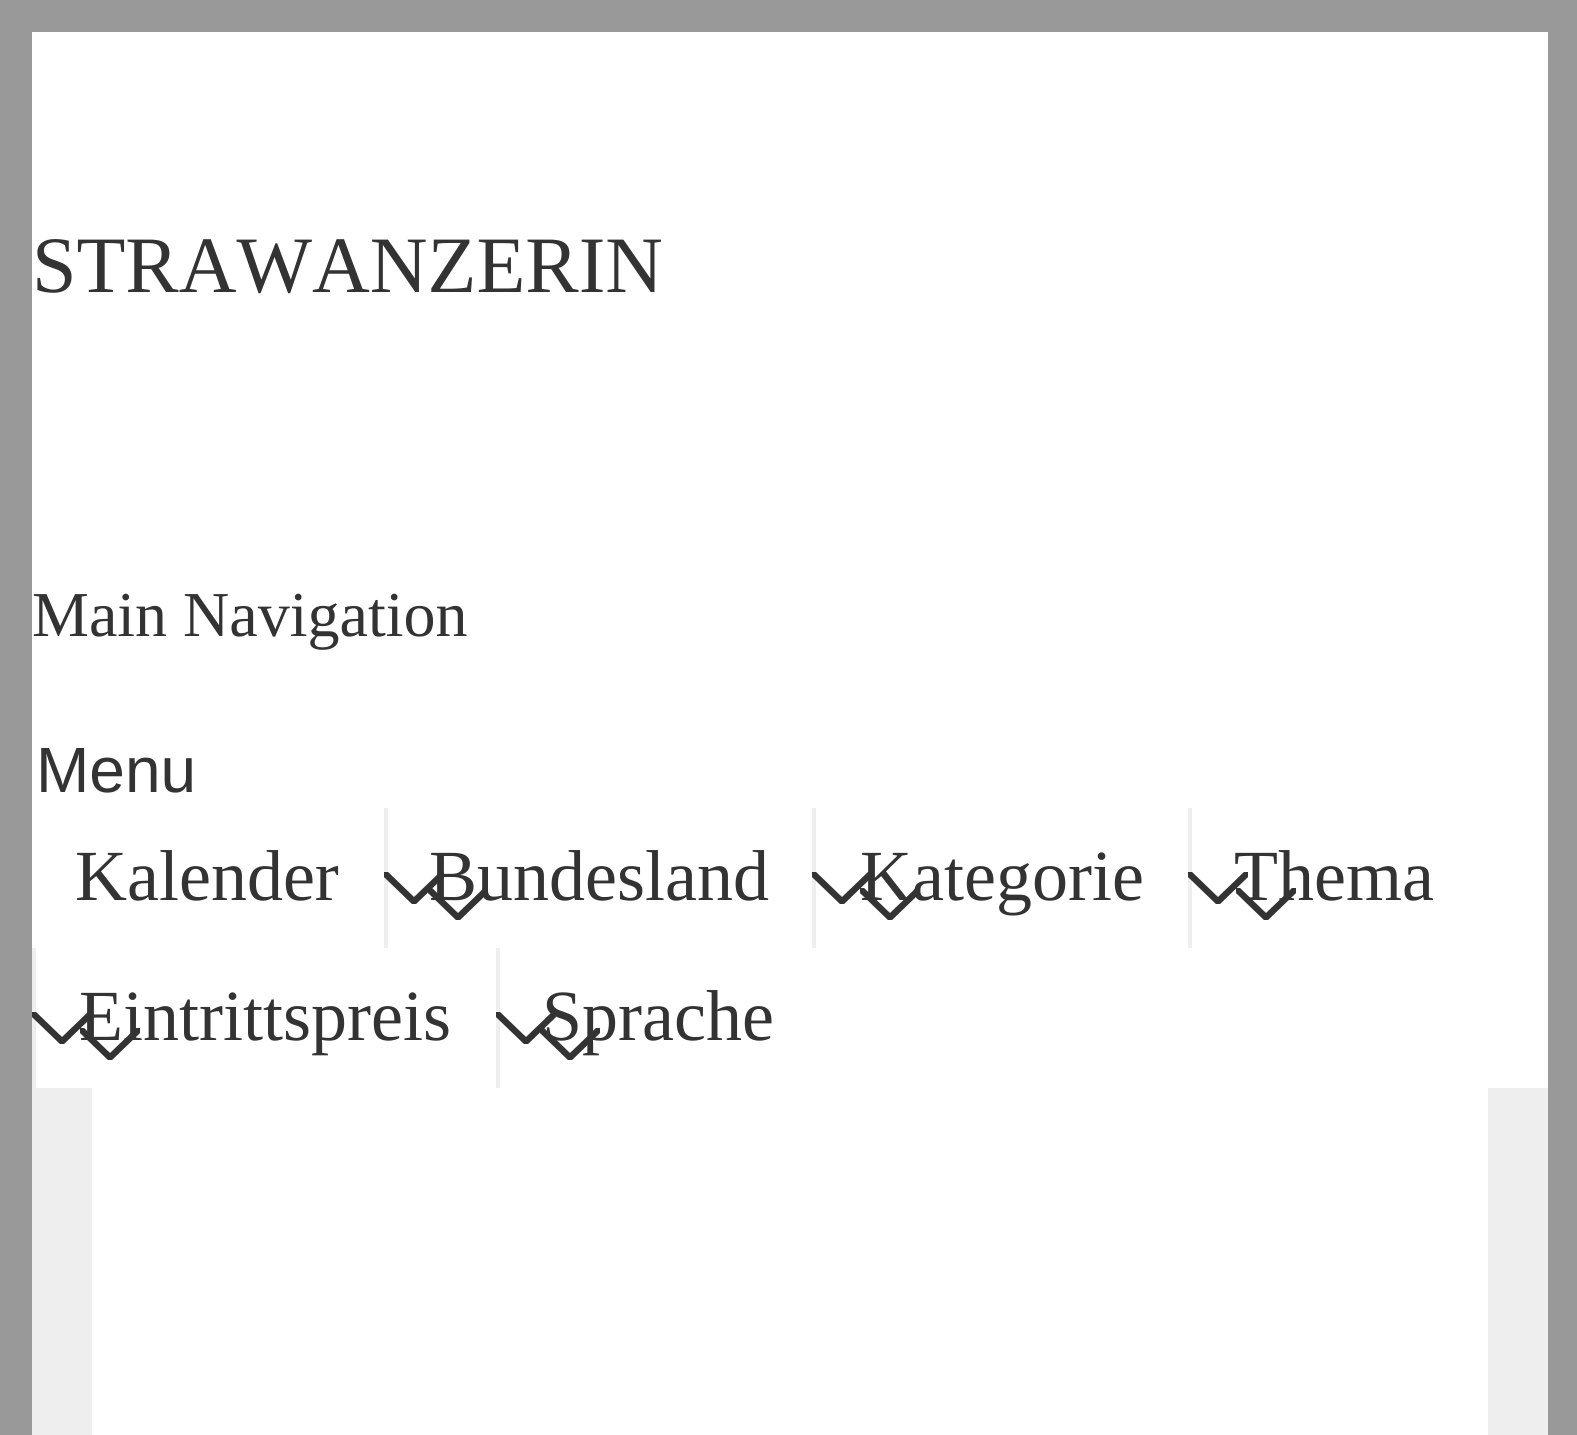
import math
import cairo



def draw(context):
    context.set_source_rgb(153 / 255, 153 / 255, 153 / 255)
    context.paint()
    context.set_source_rgb(1, 1, 1)
    context.rectangle(32, 32, 1516, 1056)
    context.fill()
    context.set_source_rgb(238 / 255, 238 / 255, 238 / 255)
    context.rectangle(384, 808, 4, 140)
    context.fill()
    context.save()
    context.rectangle(428, 888, 60, 32)
    context.clip()
    context.new_path()
    context.move_to(430, 890.5)
    context.line_to(458, 917.5)
    context.line_to(486, 890.5)
    context.set_source_rgb(51 / 255, 51 / 255, 51 / 255)
    context.set_line_width(6.5)
    context.set_line_cap(cairo.LineCap.ROUND)
    context.stroke()
    context.restore()
    context.save()
    context.rectangle(384, 872, 60, 32)
    context.clip()
    context.new_path()
    context.move_to(386, 874.5)
    context.line_to(414, 901.5)
    context.line_to(442, 874.5)
    context.set_source_rgb(51 / 255, 51 / 255, 51 / 255)
    context.set_line_width(6.5)
    context.set_line_cap(cairo.LineCap.ROUND)
    context.stroke()
    context.restore()
    context.rectangle(812, 808, 4, 140)
    context.fill()
    context.save()
    context.rectangle(860, 888, 60, 32)
    context.clip()
    context.new_path()
    context.move_to(862, 890.5)
    context.line_to(890, 917.5)
    context.line_to(918, 890.5)
    context.set_source_rgb(51 / 255, 51 / 255, 51 / 255)
    context.set_line_width(6.5)
    context.set_line_cap(cairo.LineCap.ROUND)
    context.stroke()
    context.restore()
    context.save()
    context.rectangle(812, 872, 60, 32)
    context.clip()
    context.new_path()
    context.move_to(814, 874.5)
    context.line_to(842, 901.5)
    context.line_to(870, 874.5)
    context.set_source_rgb(51 / 255, 51 / 255, 51 / 255)
    context.set_line_width(6.5)
    context.set_line_cap(cairo.LineCap.ROUND)
    context.stroke()
    context.restore()
    context.rectangle(1188, 808, 4, 140)
    context.fill()
    context.save()
    context.rectangle(1236, 888, 60, 32)
    context.clip()
    context.new_path()
    context.move_to(1238, 890.5)
    context.line_to(1266, 917.5)
    context.line_to(1294, 890.5)
    context.set_source_rgb(51 / 255, 51 / 255, 51 / 255)
    context.set_line_width(6.5)
    context.set_line_cap(cairo.LineCap.ROUND)
    context.stroke()
    context.restore()
    context.save()
    context.rectangle(1188, 872, 60, 32)
    context.clip()
    context.new_path()
    context.move_to(1190, 874.5)
    context.line_to(1218, 901.5)
    context.line_to(1246, 874.5)
    context.set_source_rgb(51 / 255, 51 / 255, 51 / 255)
    context.set_line_width(6.5)
    context.set_line_cap(cairo.LineCap.ROUND)
    context.stroke()
    context.restore()
    context.rectangle(32, 948, 4, 140)
    context.fill()
    context.save()
    context.rectangle(80, 1028, 60, 32)
    context.clip()
    context.new_path()
    context.move_to(82, 1030.5)
    context.line_to(110, 1057.5)
    context.line_to(138, 1030.5)
    context.set_source_rgb(51 / 255, 51 / 255, 51 / 255)
    context.set_line_width(6.5)
    context.set_line_cap(cairo.LineCap.ROUND)
    context.stroke()
    context.restore()
    context.save()
    context.rectangle(32, 1012, 60, 32)
    context.clip()
    context.new_path()
    context.move_to(34, 1014.5)
    context.line_to(62, 1041.5)
    context.line_to(90, 1014.5)
    context.set_source_rgb(51 / 255, 51 / 255, 51 / 255)
    context.set_line_width(6.5)
    context.set_line_cap(cairo.LineCap.ROUND)
    context.stroke()
    context.restore()
    context.rectangle(496, 948, 4, 140)
    context.fill()
    context.save()
    context.rectangle(540, 1028, 60, 32)
    context.clip()
    context.new_path()
    context.move_to(542, 1030.5)
    context.line_to(570, 1057.5)
    context.line_to(598, 1030.5)
    context.set_source_rgb(51 / 255, 51 / 255, 51 / 255)
    context.set_line_width(6.5)
    context.set_line_cap(cairo.LineCap.ROUND)
    context.stroke()
    context.restore()
    context.save()
    context.rectangle(496, 1012, 60, 32)
    context.clip()
    context.new_path()
    context.move_to(498, 1014.5)
    context.line_to(526, 1041.5)
    context.line_to(554, 1014.5)
    context.set_source_rgb(51 / 255, 51 / 255, 51 / 255)
    context.set_line_width(6.5)
    context.set_line_cap(cairo.LineCap.ROUND)
    context.stroke()
    context.restore()
    context.rectangle(32, 1088, 1516, 347)
    context.fill()
    context.set_source_rgb(1, 1, 1)
    context.rectangle(92, 1088, 1396, 347)
    context.fill()
    context.select_font_face("Liberation Serif")
    context.set_font_size(80)
    context.set_source_rgb(51 / 255, 51 / 255, 51 / 255)
    context.move_to(32, 292)
    context.show_text("STRAWANZERIN")
    context.set_font_size(64)
    context.move_to(32, 636)
    context.show_text("Main Navigation")
    context.select_font_face("Liberation Sans")
    context.move_to(36, 792)
    context.show_text("Menu")
    context.select_font_face("Liberation Serif")
    context.set_font_size(72)
    context.move_to(75, 900)
    context.show_text("Kalender")
    context.move_to(429, 900)
    context.show_text("Bundesland")
    context.move_to(860, 900)
    context.show_text("Kategorie")
    context.move_to(1234, 900)
    context.show_text("Thema")
    context.move_to(79, 1040)
    context.show_text("Eintrittspreis")
    context.move_to(542, 1040)
    context.show_text("Sprache")


surface = cairo.ImageSurface(cairo.Format.RGB24, 1577, 1435)
context = cairo.Context(surface)
options = cairo.FontOptions()
options.set_hint_metrics(cairo.HintMetrics.OFF)
options.set_hint_style(cairo.HintStyle.NONE)
context.set_font_options(options)
context.set_miter_limit(4)
draw(context)
surface.write_to_png("out.png")
